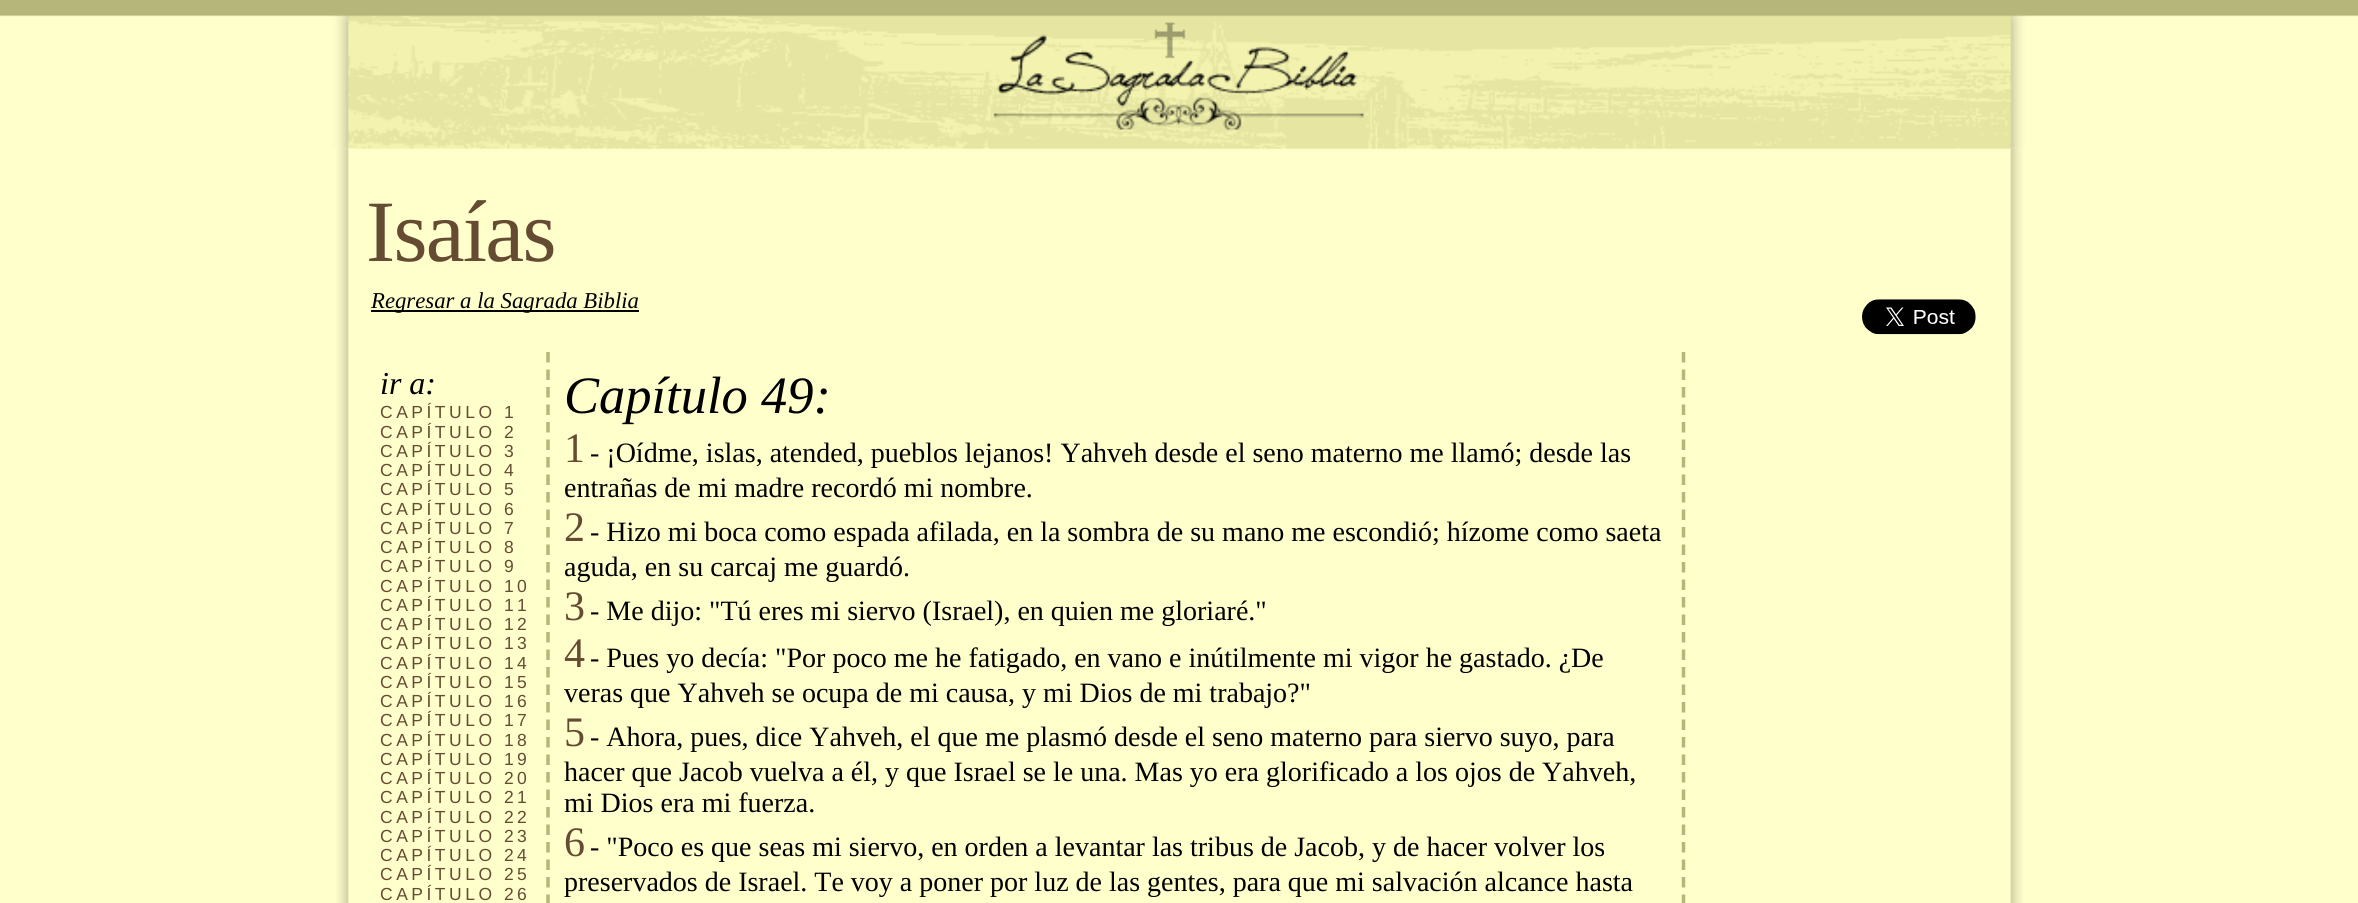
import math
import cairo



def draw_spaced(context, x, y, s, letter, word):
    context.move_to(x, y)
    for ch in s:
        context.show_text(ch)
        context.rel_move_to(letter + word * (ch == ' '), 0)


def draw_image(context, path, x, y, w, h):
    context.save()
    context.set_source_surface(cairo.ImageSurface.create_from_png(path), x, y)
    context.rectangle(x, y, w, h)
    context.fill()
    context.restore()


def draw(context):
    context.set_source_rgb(1, 1, 204 / 255)
    context.paint()
    draw_image(context, "images/1.png", 0, 0, 2358, 17)
    draw_image(context, "images/3.png", 336, 148, 13, 755)
    draw_image(context, "images/5.png", 2010, 148, 13, 755)
    draw_image(context, "images/2.png", 331, 15, 1697, 134)
    context.set_source_rgb(0, 0, 0)
    context.rectangle(371, 310, 268, 2)
    context.fill()
    draw_image(context, "images/4.png", 1862, 299, 114, 36)
    context.new_path()
    context.move_to(548, 352)
    context.line_to(548, 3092)
    context.set_source_rgb(182 / 255, 182 / 255, 122 / 255)
    context.set_line_width(3.5)
    context.set_dash([10.5, 7])
    context.stroke()
    context.new_path()
    context.move_to(1683.5, 352)
    context.line_to(1683.5, 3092)
    context.stroke()
    context.select_font_face("Liberation Serif")
    context.set_font_size(87.5)
    context.set_source_rgb(102 / 255, 75 / 255, 51 / 255)
    draw_spaced(context, 366, 261, "Isaías", -1.75, 0)
    context.select_font_face("Liberation Serif", cairo.FontSlant.ITALIC)
    context.set_font_size(22.75)
    context.set_source_rgb(0, 0, 0)
    context.move_to(371, 308)
    context.show_text("Regresar a la Sagrada Biblia")
    context.set_font_size(32)
    context.move_to(380, 394)
    context.show_text("ir a:")
    context.select_font_face("Liberation Sans")
    context.set_font_size(17.5)
    context.set_source_rgb(102 / 255, 75 / 255, 51 / 255)
    draw_spaced(context, 380, 418, "CAPÍTULO 1", 3.5, 0)
    draw_spaced(context, 380, 438, "CAPÍTULO 2", 3.5, 0)
    draw_spaced(context, 380, 457, "CAPÍTULO 3", 3.5, 0)
    draw_spaced(context, 380, 476, "CAPÍTULO 4", 3.5, 0)
    draw_spaced(context, 380, 495, "CAPÍTULO 5", 3.5, 0)
    draw_spaced(context, 380, 515, "CAPÍTULO 6", 3.5, 0)
    draw_spaced(context, 380, 534, "CAPÍTULO 7", 3.5, 0)
    draw_spaced(context, 380, 553, "CAPÍTULO 8", 3.5, 0)
    draw_spaced(context, 380, 572, "CAPÍTULO 9", 3.5, 0)
    draw_spaced(context, 380, 592, "CAPÍTULO 10", 3.5, 0)
    draw_spaced(context, 380, 611, "CAPÍTULO 11", 3.5, 0)
    draw_spaced(context, 380, 630, "CAPÍTULO 12", 3.5, 0)
    draw_spaced(context, 380, 649, "CAPÍTULO 13", 3.5, 0)
    draw_spaced(context, 380, 669, "CAPÍTULO 14", 3.5, 0)
    draw_spaced(context, 380, 688, "CAPÍTULO 15", 3.5, 0)
    draw_spaced(context, 380, 707, "CAPÍTULO 16", 3.5, 0)
    draw_spaced(context, 380, 726, "CAPÍTULO 17", 3.5, 0)
    draw_spaced(context, 380, 746, "CAPÍTULO 18", 3.5, 0)
    draw_spaced(context, 380, 765, "CAPÍTULO 19", 3.5, 0)
    draw_spaced(context, 380, 784, "CAPÍTULO 20", 3.5, 0)
    draw_spaced(context, 380, 803, "CAPÍTULO 21", 3.5, 0)
    draw_spaced(context, 380, 823, "CAPÍTULO 22", 3.5, 0)
    draw_spaced(context, 380, 842, "CAPÍTULO 23", 3.5, 0)
    draw_spaced(context, 380, 861, "CAPÍTULO 24", 3.5, 0)
    draw_spaced(context, 380, 880, "CAPÍTULO 25", 3.5, 0)
    draw_spaced(context, 380, 900, "CAPÍTULO 26", 3.5, 0)
    context.select_font_face("Liberation Serif", cairo.FontSlant.ITALIC)
    context.set_font_size(52.5)
    context.set_source_rgb(0, 0, 0)
    context.move_to(564, 413)
    context.show_text("Capítulo 49:")
    context.select_font_face("Liberation Serif")
    context.set_font_size(42)
    context.set_source_rgb(102 / 255, 75 / 255, 51 / 255)
    draw_spaced(context, 564, 462, "1", -1.75, 0)
    context.set_font_size(28)
    context.set_source_rgb(0, 0, 0)
    context.move_to(590, 462)
    context.show_text("- ¡Oídme, islas, atended, pueblos lejanos! Yahveh desde el seno materno me llamó; desde las")
    context.move_to(564, 497)
    context.show_text("entrañas de mi madre recordó mi nombre.")
    context.set_font_size(42)
    context.set_source_rgb(102 / 255, 75 / 255, 51 / 255)
    draw_spaced(context, 564, 541, "2", -1.75, 0)
    context.set_font_size(28)
    context.set_source_rgb(0, 0, 0)
    context.move_to(590, 541)
    context.show_text("- Hizo mi boca como espada afilada, en la sombra de su mano me escondió; hízome como saeta")
    context.move_to(564, 576)
    context.show_text("aguda, en su carcaj me guardó.")
    context.set_font_size(42)
    context.set_source_rgb(102 / 255, 75 / 255, 51 / 255)
    draw_spaced(context, 564, 620, "3", -1.75, 0)
    context.set_font_size(28)
    context.set_source_rgb(0, 0, 0)
    context.move_to(590, 620)
    context.show_text("- Me dijo: \"Tú eres mi siervo (Israel), en quien me gloriaré.\"")
    context.set_font_size(42)
    context.set_source_rgb(102 / 255, 75 / 255, 51 / 255)
    draw_spaced(context, 564, 667, "4", -1.75, 0)
    context.set_font_size(28)
    context.set_source_rgb(0, 0, 0)
    context.move_to(590, 667)
    context.show_text("- Pues yo decía: \"Por poco me he fatigado, en vano e inútilmente mi vigor he gastado. ¿De")
    context.move_to(564, 702)
    context.show_text("veras que Yahveh se ocupa de mi causa, y mi Dios de mi trabajo?\"")
    context.set_font_size(42)
    context.set_source_rgb(102 / 255, 75 / 255, 51 / 255)
    draw_spaced(context, 564, 746, "5", -1.75, 0)
    context.set_font_size(28)
    context.set_source_rgb(0, 0, 0)
    context.move_to(590, 746)
    context.show_text("- Ahora, pues, dice Yahveh, el que me plasmó desde el seno materno para siervo suyo, para")
    context.move_to(564, 781)
    context.show_text("hacer que Jacob vuelva a él, y que Israel se le una. Mas yo era glorificado a los ojos de Yahveh,")
    context.move_to(564, 812)
    context.show_text("mi Dios era mi fuerza.")
    context.set_font_size(42)
    context.set_source_rgb(102 / 255, 75 / 255, 51 / 255)
    draw_spaced(context, 564, 856, "6", -1.75, 0)
    context.set_font_size(28)
    context.set_source_rgb(0, 0, 0)
    context.move_to(590, 856)
    context.show_text("- \"Poco es que seas mi siervo, en orden a levantar las tribus de Jacob, y de hacer volver los")
    context.move_to(564, 891)
    context.show_text("preservados de Israel. Te voy a poner por luz de las gentes, para que mi salvación alcance hasta")


surface = cairo.ImageSurface(cairo.Format.RGB24, 2358, 903)
context = cairo.Context(surface)
options = cairo.FontOptions()
options.set_hint_metrics(cairo.HintMetrics.OFF)
options.set_hint_style(cairo.HintStyle.NONE)
context.set_font_options(options)
context.set_miter_limit(4)
draw(context)
surface.write_to_png("out.png")
